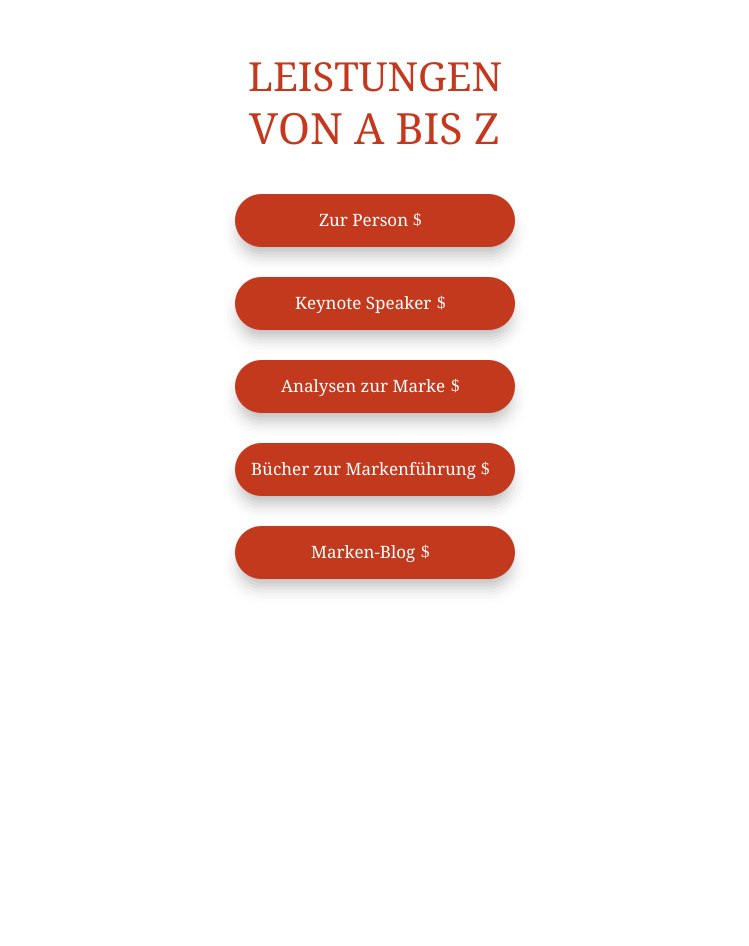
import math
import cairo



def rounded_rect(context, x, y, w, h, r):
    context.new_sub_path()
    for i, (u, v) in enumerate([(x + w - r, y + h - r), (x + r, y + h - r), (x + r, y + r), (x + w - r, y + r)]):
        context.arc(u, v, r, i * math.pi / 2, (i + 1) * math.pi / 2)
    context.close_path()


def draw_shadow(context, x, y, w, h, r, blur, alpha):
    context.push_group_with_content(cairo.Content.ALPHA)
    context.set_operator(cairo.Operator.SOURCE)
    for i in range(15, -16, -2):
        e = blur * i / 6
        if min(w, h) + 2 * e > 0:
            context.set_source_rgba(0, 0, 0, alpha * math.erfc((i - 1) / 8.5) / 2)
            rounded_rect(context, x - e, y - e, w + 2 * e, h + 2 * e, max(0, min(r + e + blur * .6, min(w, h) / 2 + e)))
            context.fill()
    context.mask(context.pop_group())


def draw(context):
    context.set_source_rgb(1, 1, 1)
    context.paint()
    context.set_source_rgb(0, 0, 0)
    draw_shadow(context, 241, 212, 268, 41, 20.5, 9, 0.3)
    context.set_source_rgb(195 / 255, 57 / 255, 30 / 255)
    rounded_rect(context, 236, 195, 278, 51, 25.5)
    context.fill_preserve()
    context.stroke()
    context.set_source_rgb(0, 0, 0)
    draw_shadow(context, 241, 295, 268, 41, 20.5, 9, 0.3)
    context.set_source_rgb(195 / 255, 57 / 255, 30 / 255)
    rounded_rect(context, 236, 278, 278, 51, 25.5)
    context.fill_preserve()
    context.stroke()
    context.set_source_rgb(0, 0, 0)
    draw_shadow(context, 241, 378, 268, 41, 20.5, 9, 0.3)
    context.set_source_rgb(195 / 255, 57 / 255, 30 / 255)
    rounded_rect(context, 236, 361, 278, 51, 25.5)
    context.fill_preserve()
    context.stroke()
    context.set_source_rgb(0, 0, 0)
    draw_shadow(context, 241, 461, 268, 41, 20.5, 9, 0.3)
    context.set_source_rgb(195 / 255, 57 / 255, 30 / 255)
    rounded_rect(context, 236, 444, 278, 51, 25.5)
    context.fill_preserve()
    context.stroke()
    context.set_source_rgb(0, 0, 0)
    draw_shadow(context, 241, 544, 268, 41, 20.5, 9, 0.3)
    context.set_source_rgb(195 / 255, 57 / 255, 30 / 255)
    rounded_rect(context, 236, 527, 278, 51, 25.5)
    context.fill_preserve()
    context.stroke()
    context.select_font_face("Noto Serif")
    context.set_font_size(40)
    context.set_source_rgb(196 / 255, 57 / 255, 30 / 255)
    context.move_to(248, 91)
    context.show_text("LEISTUNGEN")
    context.set_font_size(43)
    context.move_to(249, 144)
    context.show_text("VON A BIS Z")
    context.set_font_size(17)
    context.set_source_rgb(1, 1, 1)
    context.move_to(319, 226)
    context.show_text("Zur Person")
    context.select_font_face("Liberation Serif")
    context.move_to(413, 225)
    context.show_text("$")
    context.select_font_face("Noto Serif")
    context.move_to(295, 309)
    context.show_text("Keynote Speaker")
    context.select_font_face("Liberation Serif")
    context.move_to(437, 308)
    context.show_text("$")
    context.select_font_face("Noto Serif")
    context.move_to(281, 392)
    context.show_text("Analysen zur Marke")
    context.select_font_face("Liberation Serif")
    context.move_to(451, 391)
    context.show_text("$")
    context.select_font_face("Noto Serif")
    context.move_to(251, 475)
    context.show_text("Bücher zur Markenführung")
    context.select_font_face("Liberation Serif")
    context.move_to(481, 474)
    context.show_text("$")
    context.select_font_face("Noto Serif")
    context.move_to(311, 558)
    context.show_text("Marken-Blog")
    context.select_font_face("Liberation Serif")
    context.move_to(421, 557)
    context.show_text("$")


surface = cairo.ImageSurface(cairo.Format.RGB24, 749, 946)
context = cairo.Context(surface)
options = cairo.FontOptions()
options.set_hint_metrics(cairo.HintMetrics.OFF)
options.set_hint_style(cairo.HintStyle.NONE)
context.set_font_options(options)
context.set_miter_limit(4)
draw(context)
surface.write_to_png("out.png")
